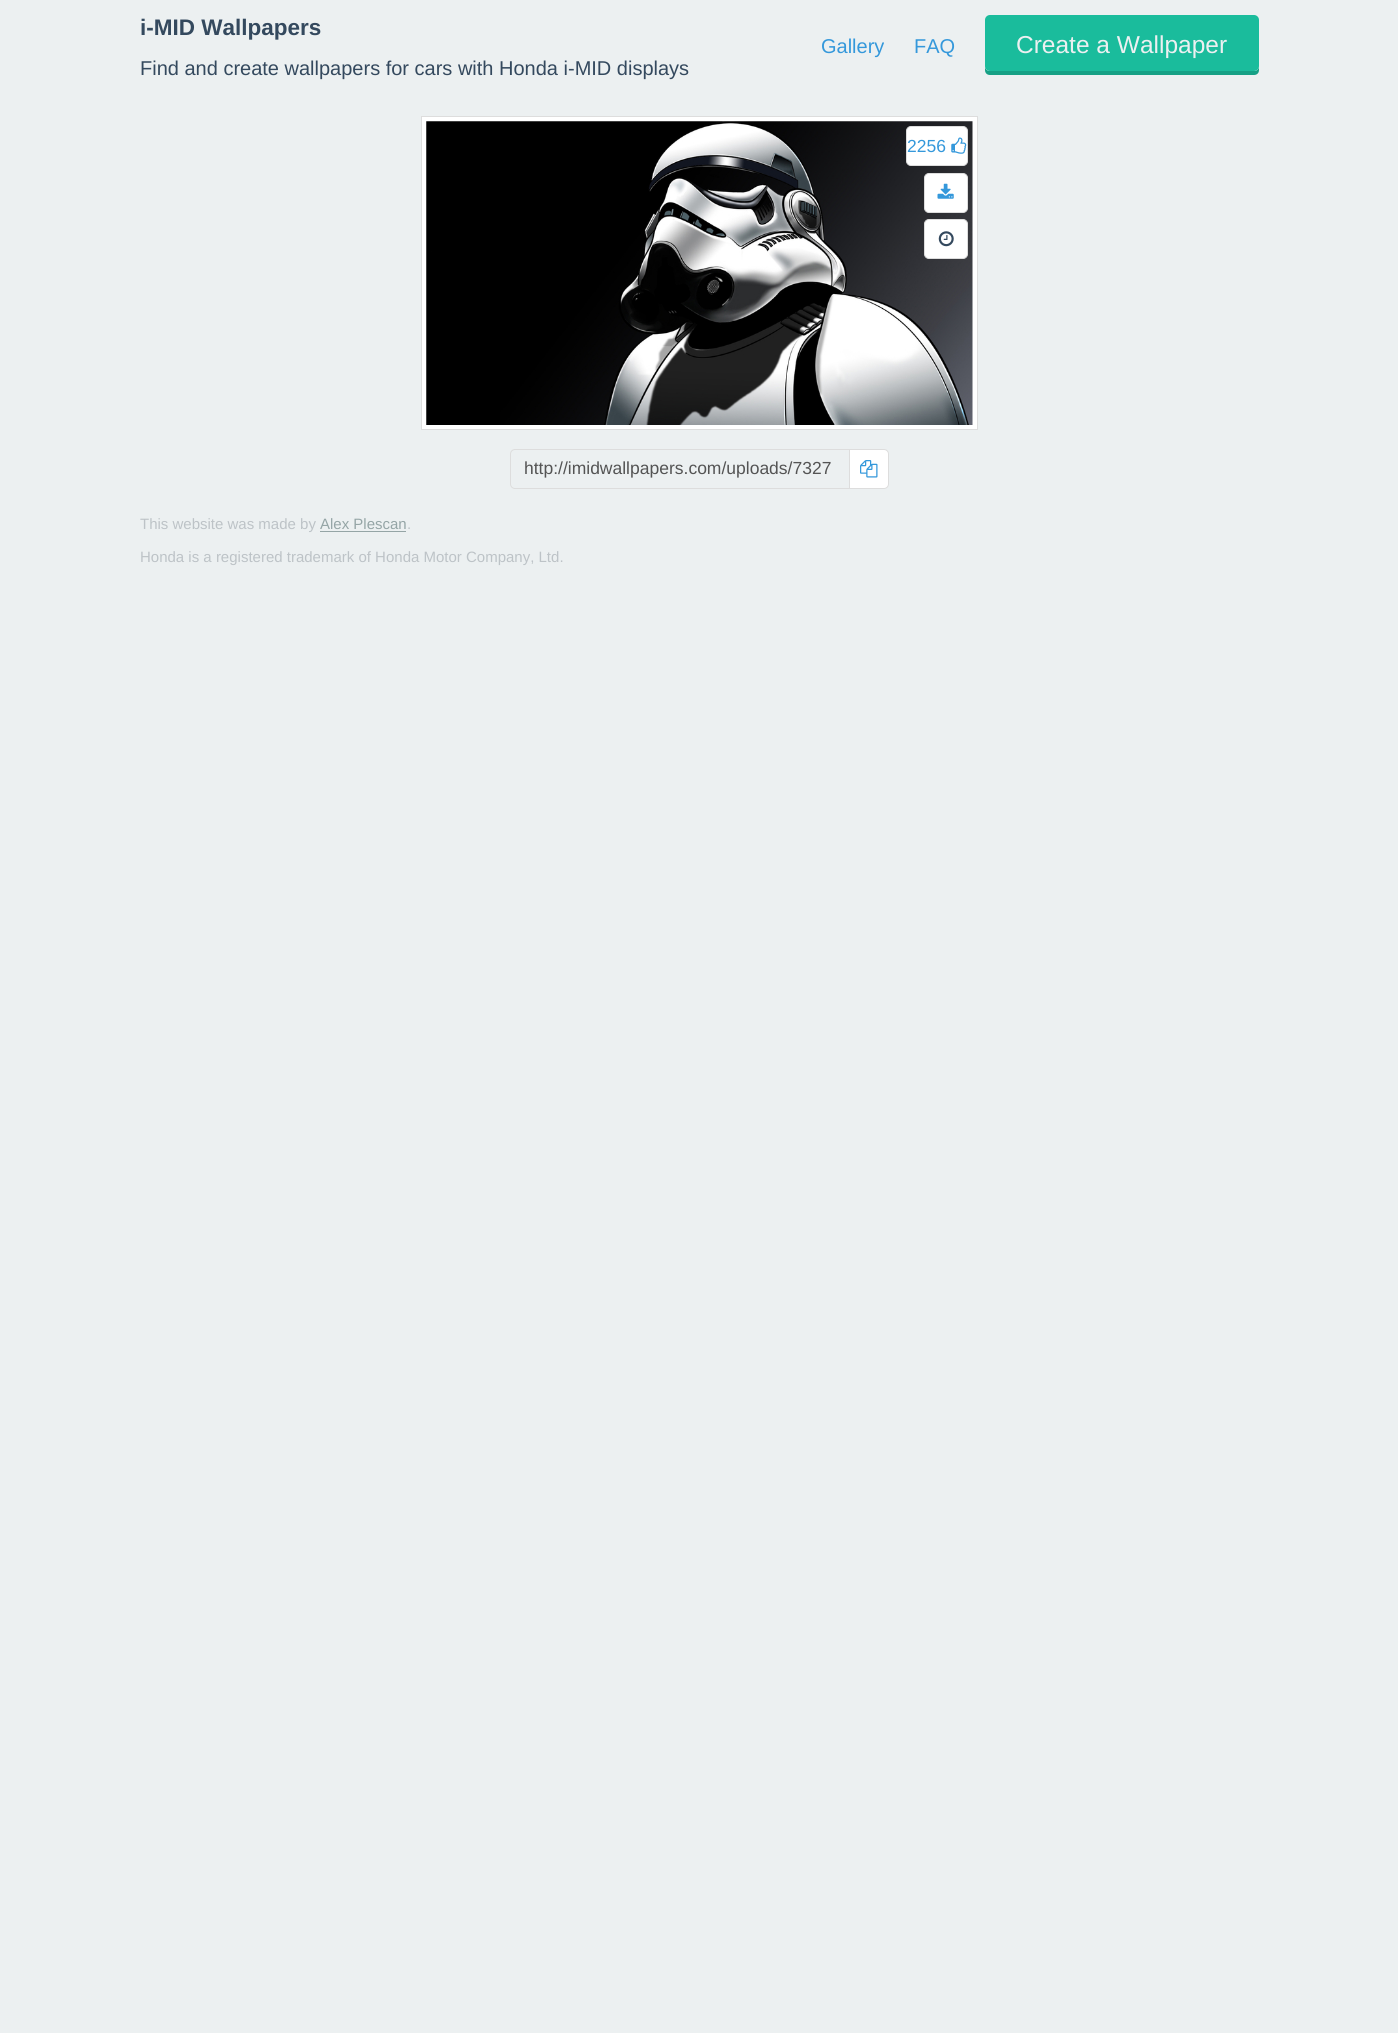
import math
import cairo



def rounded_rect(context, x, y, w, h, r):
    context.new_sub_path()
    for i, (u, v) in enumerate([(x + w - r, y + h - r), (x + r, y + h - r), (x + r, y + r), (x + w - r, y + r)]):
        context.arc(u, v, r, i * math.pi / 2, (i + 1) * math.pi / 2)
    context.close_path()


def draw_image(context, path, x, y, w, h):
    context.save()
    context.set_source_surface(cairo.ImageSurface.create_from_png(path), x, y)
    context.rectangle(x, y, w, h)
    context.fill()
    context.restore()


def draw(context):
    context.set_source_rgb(236 / 255, 240 / 255, 241 / 255)
    context.paint()
    context.set_source_rgb(22 / 255, 160 / 255, 133 / 255)
    context.new_path()
    context.move_to(985, 66)
    context.line_to(985, 70)
    context.curve_to(985, 73, 987, 75, 990, 75)
    context.line_to(1254, 75)
    context.curve_to(1257, 75, 1259, 73, 1259, 70)
    context.line_to(1259, 22)
    context.line_to(1259, 66)
    context.curve_to(1259, 69, 1257, 71, 1254, 71)
    context.line_to(990, 71)
    context.curve_to(987, 71, 985, 69, 985, 66)
    context.close_path()
    context.fill()
    context.set_source_rgb(26 / 255, 188 / 255, 156 / 255)
    rounded_rect(context, 985, 15, 274, 56, 5)
    context.fill()
    context.set_source_rgb(1, 1, 1)
    context.rectangle(421.5, 116.5, 556, 313)
    context.fill_preserve()
    context.set_source_rgb(221 / 255, 221 / 255, 221 / 255)
    context.set_line_width(1)
    context.stroke()
    draw_image(context, "images/1.png", 426, 121, 547, 304)
    context.set_source_rgb(1, 1, 1)
    rounded_rect(context, 906.5, 126.5, 61, 39, 4.5)
    context.fill_preserve()
    context.set_source_rgb(221 / 255, 221 / 255, 221 / 255)
    context.stroke()
    draw_image(context, "images/2.png", 951, 137, 16, 17)
    context.set_source_rgb(1, 1, 1)
    rounded_rect(context, 924.5, 173.5, 43, 39, 4.5)
    context.fill_preserve()
    context.set_source_rgb(221 / 255, 221 / 255, 221 / 255)
    context.stroke()
    draw_image(context, "images/3.png", 937, 183, 17, 16)
    context.set_source_rgb(1, 1, 1)
    rounded_rect(context, 924.5, 219.5, 43, 39, 4.5)
    context.fill_preserve()
    context.set_source_rgb(221 / 255, 221 / 255, 221 / 255)
    context.stroke()
    draw_image(context, "images/4.png", 938, 231, 16, 16)
    context.new_path()
    context.move_to(515, 449.5)
    context.line_to(849.5, 449.5)
    context.line_to(849.5, 488.5)
    context.line_to(515, 488.5)
    context.curve_to(512.5, 488.5, 510.5, 486.5, 510.5, 484)
    context.line_to(510.5, 454)
    context.curve_to(510.5, 451.5, 512.5, 449.5, 515, 449.5)
    context.close_path()
    context.stroke()
    context.set_source_rgb(1, 1, 1)
    context.new_path()
    context.move_to(849.5, 449.5)
    context.line_to(884, 449.5)
    context.curve_to(886.5, 449.5, 888.5, 451.5, 888.5, 454)
    context.line_to(888.5, 484)
    context.curve_to(888.5, 486.5, 886.5, 488.5, 884, 488.5)
    context.line_to(849.5, 488.5)
    context.close_path()
    context.fill_preserve()
    context.set_source_rgb(221 / 255, 221 / 255, 221 / 255)
    context.stroke()
    draw_image(context, "images/5.png", 860, 460, 18, 18)
    context.set_source_rgb(149 / 255, 165 / 255, 166 / 255)
    context.rectangle(320, 531, 86, 1)
    context.fill()
    context.select_font_face("Liberation Sans", cairo.FontSlant.NORMAL, cairo.FontWeight.BOLD)
    context.set_font_size(22.5)
    context.set_source_rgb(52 / 255, 73 / 255, 94 / 255)
    context.move_to(140, 35)
    context.show_text("i-MID Wallpapers")
    context.select_font_face("Liberation Sans")
    context.set_font_size(20)
    context.set_source_rgb(52 / 255, 152 / 255, 219 / 255)
    context.move_to(821, 53)
    context.show_text("Gallery")
    context.move_to(914, 53)
    context.show_text("FAQ")
    context.set_font_size(24.5)
    context.set_source_rgb(236 / 255, 240 / 255, 241 / 255)
    context.move_to(1016, 53)
    context.show_text("Create a Wallpaper")
    context.set_font_size(20)
    context.set_source_rgb(52 / 255, 73 / 255, 94 / 255)
    context.move_to(140, 75)
    context.show_text("Find and create wallpapers for cars with Honda i-MID displays")
    context.set_font_size(17.5)
    context.set_source_rgb(52 / 255, 152 / 255, 219 / 255)
    context.move_to(907, 152)
    context.show_text("2256")
    context.set_source_rgb(84 / 255, 84 / 255, 84 / 255)
    context.move_to(524, 474)
    context.show_text("http://imidwallpapers.com/uploads/7327")
    context.set_font_size(15)
    context.set_source_rgb(189 / 255, 195 / 255, 199 / 255)
    context.move_to(140, 529)
    context.show_text("This website was made by")
    context.set_source_rgb(149 / 255, 165 / 255, 166 / 255)
    context.move_to(320, 529)
    context.show_text("Alex Plescan")
    context.set_source_rgb(189 / 255, 195 / 255, 199 / 255)
    context.move_to(407, 529)
    context.show_text(".")
    context.move_to(140, 562)
    context.show_text("Honda is a registered trademark of Honda Motor Company, Ltd.")


surface = cairo.ImageSurface(cairo.Format.RGB24, 1398, 2033)
context = cairo.Context(surface)
options = cairo.FontOptions()
options.set_hint_metrics(cairo.HintMetrics.OFF)
options.set_hint_style(cairo.HintStyle.NONE)
context.set_font_options(options)
context.set_miter_limit(4)
draw(context)
surface.write_to_png("out.png")
